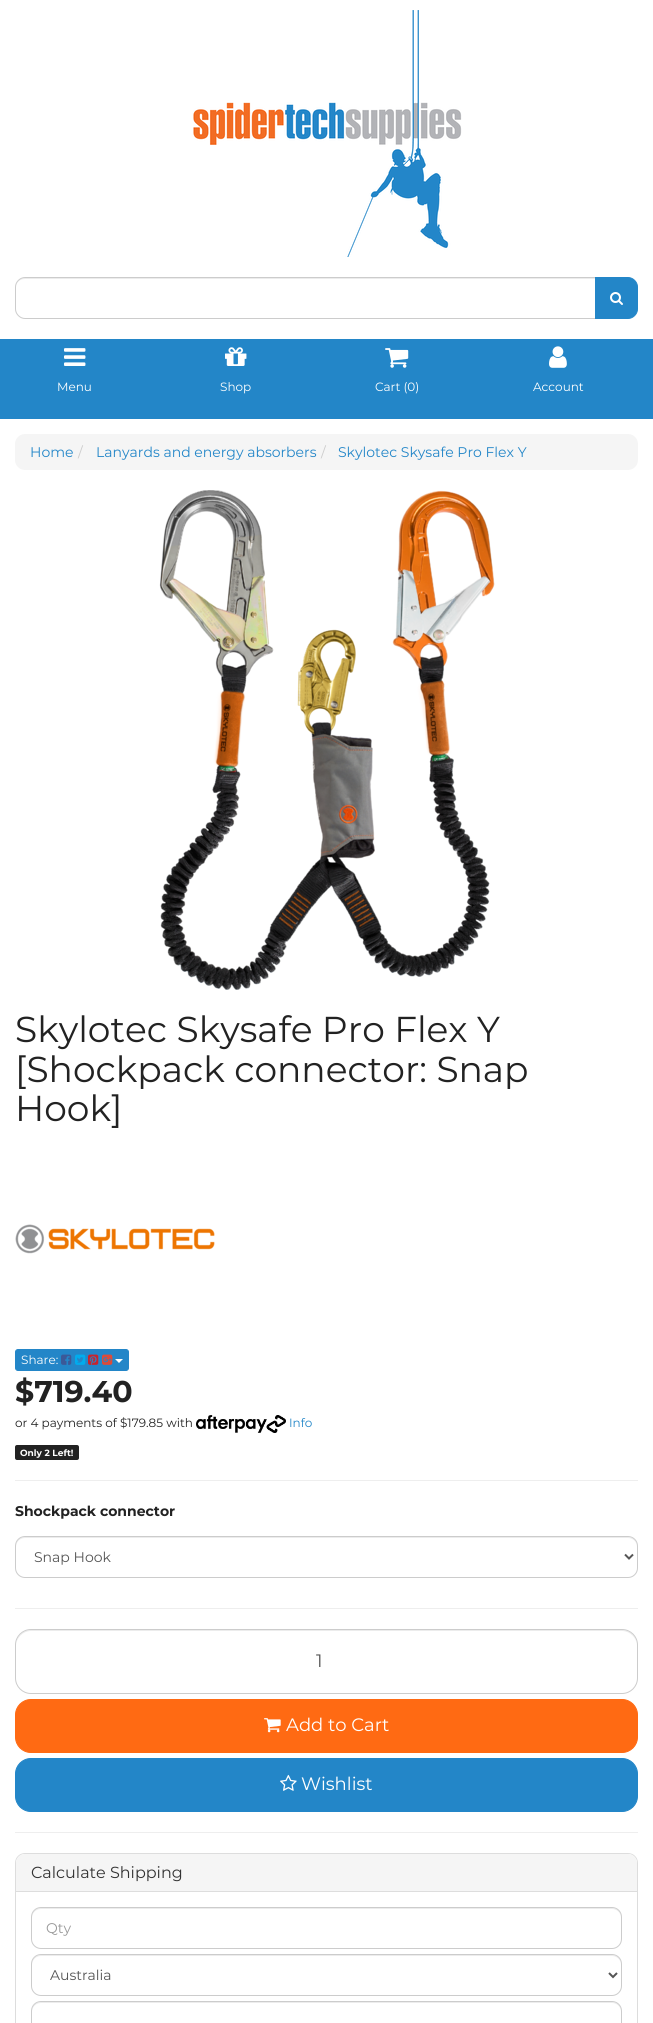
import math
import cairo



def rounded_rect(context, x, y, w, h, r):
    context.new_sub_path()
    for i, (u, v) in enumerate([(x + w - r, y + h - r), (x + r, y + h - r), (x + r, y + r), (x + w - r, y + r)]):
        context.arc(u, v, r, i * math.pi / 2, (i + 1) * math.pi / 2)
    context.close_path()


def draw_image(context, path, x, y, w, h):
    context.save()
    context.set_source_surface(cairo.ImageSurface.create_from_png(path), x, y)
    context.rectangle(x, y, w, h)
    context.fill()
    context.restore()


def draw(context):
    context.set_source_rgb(1, 1, 1)
    context.paint()
    draw_image(context, "images/1.png", 193, 10, 269, 247)
    context.set_source_rgb(236 / 255, 236 / 255, 236 / 255)
    context.set_fill_rule(cairo.FillRule.EVEN_ODD)
    context.new_path()
    context.move_to(25, 279)
    context.line_to(595, 279)
    context.line_to(595, 278)
    context.line_to(25, 278)
    context.curve_to(19, 278, 16, 283, 16, 289)
    context.curve_to(16, 284, 18, 279, 25, 279)
    context.close_path()
    context.move_to(16, 311)
    context.line_to(16, 309)
    context.close_path()
    context.fill()
    context.new_path()
    context.move_to(25, 277.5)
    context.line_to(595.5, 277.5)
    context.line_to(595.5, 318.5)
    context.line_to(25, 318.5)
    context.curve_to(20, 318.5, 15.5, 314, 15.5, 309)
    context.line_to(15.5, 287)
    context.curve_to(15.5, 282, 20, 277.5, 25, 277.5)
    context.close_path()
    context.set_source_rgb(204 / 255, 204 / 255, 204 / 255)
    context.set_line_width(1)
    context.stroke()
    context.set_source_rgb(35 / 255, 134 / 255, 200 / 255)
    context.new_path()
    context.move_to(595.5, 277.5)
    context.line_to(628, 277.5)
    context.curve_to(633, 277.5, 637.5, 282, 637.5, 287)
    context.line_to(637.5, 309)
    context.curve_to(637.5, 314, 633, 318.5, 628, 318.5)
    context.line_to(595.5, 318.5)
    context.close_path()
    context.fill_preserve()
    context.stroke()
    draw_image(context, "images/2.png", 610, 292, 13, 13)
    context.rectangle(0, 339, 653, 80)
    context.fill()
    draw_image(context, "images/3.png", 64, 348, 22, 18)
    draw_image(context, "images/4.png", 225, 347, 22, 19)
    draw_image(context, "images/5.png", 385, 348, 24, 20)
    draw_image(context, "images/6.png", 549, 346, 18, 22)
    context.set_source_rgb(245 / 255, 245 / 255, 245 / 255)
    rounded_rect(context, 15, 434, 623, 36, 10)
    context.fill()
    draw_image(context, "images/7.png", 159, 490, 336, 500)
    draw_image(context, "images/8.png", 15, 1224, 200, 30)
    context.set_source_rgb(35 / 255, 134 / 255, 200 / 255)
    rounded_rect(context, 15.5, 1349.5, 113, 21, 2.5)
    context.fill_preserve()
    context.stroke()
    draw_image(context, "images/9.png", 61, 1354, 11, 11)
    draw_image(context, "images/10.png", 75, 1354, 11, 11)
    draw_image(context, "images/11.png", 88, 1354, 11, 11)
    draw_image(context, "images/12.png", 102, 1354, 11, 11)
    context.set_source_rgb(1, 1, 1)
    context.set_fill_rule(cairo.FillRule.WINDING)
    context.new_path()
    context.move_to(115, 1359)
    context.line_to(123, 1359)
    context.line_to(119, 1363)
    context.close_path()
    context.fill()
    draw_image(context, "images/13.png", 196, 1415, 90, 18)
    context.set_source_rgb(34 / 255, 34 / 255, 34 / 255)
    rounded_rect(context, 15, 1445, 64, 15, 2)
    context.fill()
    context.set_source_rgb(238 / 255, 238 / 255, 238 / 255)
    context.rectangle(15, 1480, 623, 1)
    context.fill()
    context.set_source_rgb(236 / 255, 236 / 255, 236 / 255)
    context.new_path()
    context.move_to(25, 1538)
    context.line_to(628, 1538)
    context.curve_to(633, 1538, 637, 1542, 637, 1547)
    context.line_to(637, 1546)
    context.curve_to(637, 1541, 633, 1537, 628, 1537)
    context.line_to(25, 1537)
    context.curve_to(20, 1537, 16, 1541, 16, 1546)
    context.line_to(16, 1547)
    context.curve_to(16, 1542, 20, 1538, 25, 1538)
    context.close_path()
    context.fill()
    rounded_rect(context, 15.5, 1536.5, 622, 41, 9.5)
    context.set_source_rgb(204 / 255, 204 / 255, 204 / 255)
    context.stroke()
    context.new_path()
    context.move_to(625, 1554.5)
    context.line_to(629, 1558.5)
    context.line_to(633, 1554.5)
    context.set_source_rgb(85 / 255, 85 / 255, 85 / 255)
    context.set_line_width(2)
    context.stroke()
    context.set_source_rgb(238 / 255, 238 / 255, 238 / 255)
    context.rectangle(15, 1608, 623, 1)
    context.fill()
    context.set_source_rgb(236 / 255, 236 / 255, 236 / 255)
    context.new_path()
    context.move_to(31, 1631)
    context.line_to(622, 1631)
    context.curve_to(630, 1631, 637, 1638, 637, 1646)
    context.curve_to(637, 1637, 631, 1630, 622, 1630)
    context.line_to(31, 1630)
    context.curve_to(22, 1630, 16, 1637, 16, 1646)
    context.curve_to(16, 1638, 23, 1631, 31, 1631)
    context.close_path()
    context.fill()
    rounded_rect(context, 15.5, 1629.5, 622, 64, 15.5)
    context.set_source_rgb(204 / 255, 204 / 255, 204 / 255)
    context.set_line_width(1)
    context.stroke()
    context.set_source_rgb(1, 106 / 255, 19 / 255)
    rounded_rect(context, 15.5, 1699.5, 622, 53, 15.5)
    context.fill_preserve()
    context.stroke()
    draw_image(context, "images/14.png", 264, 1718, 17, 15)
    context.set_source_rgb(35 / 255, 134 / 255, 200 / 255)
    rounded_rect(context, 15.5, 1758.5, 622, 53, 15.5)
    context.fill_preserve()
    context.stroke()
    draw_image(context, "images/15.png", 280, 1774, 17, 17)
    context.set_source_rgb(238 / 255, 238 / 255, 238 / 255)
    context.rectangle(15, 1832, 623, 1)
    context.fill()
    rounded_rect(context, 15.5, 1853.5, 622, 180, 9.5)
    context.set_source_rgb(221 / 255, 221 / 255, 221 / 255)
    context.stroke()
    context.set_source_rgb(245 / 255, 245 / 255, 245 / 255)
    context.new_path()
    context.move_to(25, 1854)
    context.line_to(628, 1854)
    context.curve_to(633, 1854, 637, 1858, 637, 1863)
    context.line_to(637, 1892)
    context.line_to(16, 1892)
    context.line_to(16, 1863)
    context.curve_to(16, 1858, 20, 1854, 25, 1854)
    context.close_path()
    context.fill()
    context.set_source_rgb(221 / 255, 221 / 255, 221 / 255)
    context.rectangle(16, 1891, 621, 1)
    context.fill()
    context.set_source_rgb(236 / 255, 236 / 255, 236 / 255)
    context.new_path()
    context.move_to(41, 1909)
    context.line_to(612, 1909)
    context.curve_to(617, 1909, 621, 1913, 621, 1918)
    context.line_to(621, 1917)
    context.curve_to(621, 1912, 617, 1908, 612, 1908)
    context.line_to(41, 1908)
    context.curve_to(36, 1908, 32, 1912, 32, 1917)
    context.line_to(32, 1918)
    context.curve_to(32, 1913, 36, 1909, 41, 1909)
    context.close_path()
    context.fill()
    rounded_rect(context, 31.5, 1907.5, 590, 41, 9.5)
    context.set_source_rgb(204 / 255, 204 / 255, 204 / 255)
    context.stroke()
    context.set_source_rgb(236 / 255, 236 / 255, 236 / 255)
    context.new_path()
    context.move_to(41, 1956)
    context.line_to(612, 1956)
    context.curve_to(617, 1956, 621, 1960, 621, 1965)
    context.line_to(621, 1964)
    context.curve_to(621, 1959, 617, 1955, 612, 1955)
    context.line_to(41, 1955)
    context.curve_to(36, 1955, 32, 1959, 32, 1964)
    context.line_to(32, 1965)
    context.curve_to(32, 1960, 36, 1956, 41, 1956)
    context.close_path()
    context.fill()
    rounded_rect(context, 31.5, 1954.5, 590, 41, 9.5)
    context.set_source_rgb(204 / 255, 204 / 255, 204 / 255)
    context.stroke()
    context.new_path()
    context.move_to(609, 1973)
    context.line_to(613, 1977)
    context.line_to(617, 1973)
    context.set_source_rgb(85 / 255, 85 / 255, 85 / 255)
    context.set_line_width(2)
    context.stroke()
    context.set_source_rgb(236 / 255, 236 / 255, 236 / 255)
    context.new_path()
    context.move_to(41, 2003)
    context.line_to(612, 2003)
    context.curve_to(617, 2003, 621, 2007, 621, 2012)
    context.line_to(621, 2011)
    context.curve_to(621, 2006, 617, 2002, 612, 2002)
    context.line_to(41, 2002)
    context.curve_to(36, 2002, 32, 2006, 32, 2011)
    context.line_to(32, 2012)
    context.curve_to(32, 2007, 36, 2003, 41, 2003)
    context.close_path()
    context.fill()
    rounded_rect(context, 31.5, 2001.5, 590, 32, 9.5)
    context.set_source_rgb(204 / 255, 204 / 255, 204 / 255)
    context.set_line_width(1)
    context.stroke()
    context.select_font_face("Montserrat")
    context.set_font_size(12)
    context.set_source_rgb(1, 1, 1)
    context.move_to(57, 391)
    context.show_text("Menu")
    context.move_to(220, 391)
    context.show_text("Shop")
    context.move_to(375, 391)
    context.show_text("Cart (0)")
    context.move_to(533, 391)
    context.show_text("Account")
    context.set_font_size(14)
    context.set_source_rgb(35 / 255, 134 / 255, 200 / 255)
    context.move_to(30, 457)
    context.show_text("Home")
    context.set_source_rgb(204 / 255, 204 / 255, 204 / 255)
    context.move_to(78, 457)
    context.show_text("/")
    context.set_source_rgb(35 / 255, 134 / 255, 200 / 255)
    context.move_to(96, 457)
    context.show_text("Lanyards and energy absorbers")
    context.set_source_rgb(204 / 255, 204 / 255, 204 / 255)
    context.move_to(321, 457)
    context.show_text("/")
    context.set_source_rgb(35 / 255, 134 / 255, 200 / 255)
    context.move_to(338, 457)
    context.show_text("Skylotec Skysafe Pro Flex Y")
    context.set_font_size(36)
    context.set_source_rgb(34 / 255, 34 / 255, 34 / 255)
    context.move_to(15, 1042)
    context.show_text("Skylotec Skysafe Pro Flex Y")
    context.move_to(15, 1082)
    context.show_text("[Shockpack connector: Snap")
    context.move_to(15, 1121)
    context.show_text("Hook]")
    context.set_font_size(12)
    context.set_source_rgb(1, 1, 1)
    context.move_to(21, 1364)
    context.show_text("Share:")
    context.select_font_face("Montserrat", cairo.FontSlant.NORMAL, cairo.FontWeight.BOLD)
    context.set_font_size(30)
    context.set_source_rgb(34 / 255, 34 / 255, 34 / 255)
    context.move_to(15, 1402)
    context.show_text("$719.40")
    context.select_font_face("Montserrat")
    context.set_font_size(12)
    context.move_to(15, 1427)
    context.show_text("or 4 payments of $179.85 with")
    context.set_source_rgb(35 / 255, 134 / 255, 200 / 255)
    context.move_to(289, 1427)
    context.show_text("Info")
    context.select_font_face("Montserrat", cairo.FontSlant.NORMAL, cairo.FontWeight.BOLD)
    context.set_font_size(9)
    context.set_source_rgb(1, 1, 1)
    context.move_to(20, 1456)
    context.show_text("Only 2 Left!")
    context.set_font_size(14)
    context.set_source_rgb(34 / 255, 34 / 255, 34 / 255)
    context.move_to(15, 1516)
    context.show_text("Shockpack connector")
    context.select_font_face("Montserrat")
    context.set_source_rgb(85 / 255, 85 / 255, 85 / 255)
    context.move_to(34, 1562)
    context.show_text("Snap Hook")
    context.set_font_size(18)
    context.move_to(316, 1667)
    context.show_text("1")
    context.set_source_rgb(1, 1, 1)
    context.move_to(286, 1731)
    context.show_text("Add to Cart")
    context.move_to(301, 1790)
    context.show_text("Wishlist")
    context.set_font_size(16)
    context.set_source_rgb(51 / 255, 51 / 255, 51 / 255)
    context.move_to(31, 1878)
    context.show_text("Calculate Shipping")
    context.set_font_size(14)
    context.set_source_rgb(153 / 255, 153 / 255, 153 / 255)
    context.move_to(46, 1933)
    context.show_text("Qty")
    context.set_source_rgb(85 / 255, 85 / 255, 85 / 255)
    context.move_to(50, 1980)
    context.show_text("Australia")


surface = cairo.ImageSurface(cairo.Format.RGB24, 653, 2023)
context = cairo.Context(surface)
options = cairo.FontOptions()
options.set_hint_metrics(cairo.HintMetrics.OFF)
options.set_hint_style(cairo.HintStyle.NONE)
context.set_font_options(options)
context.set_miter_limit(4)
draw(context)
surface.write_to_png("out.png")
